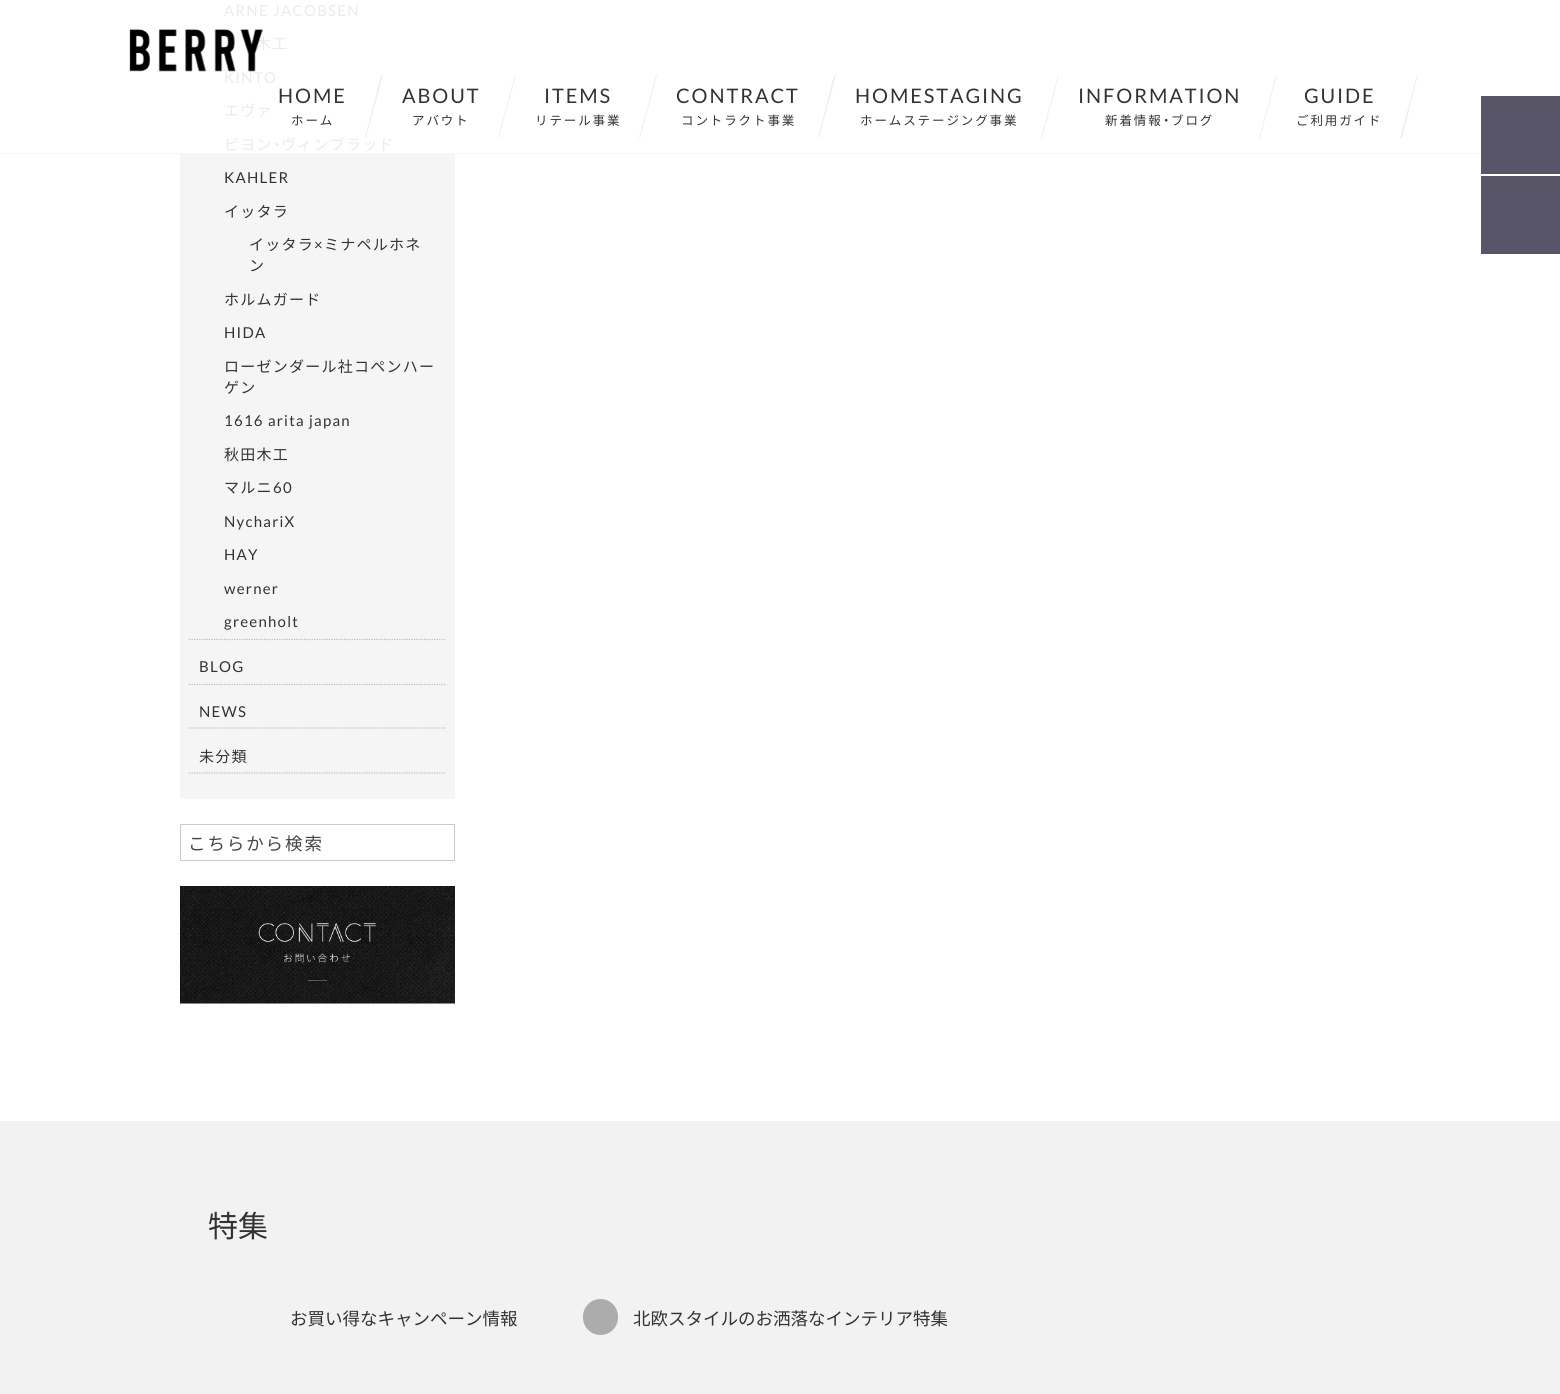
import math
import cairo



def draw_spaced(context, x, y, s, letter, word):
    context.move_to(x, y)
    for ch in s:
        context.show_text(ch)
        context.rel_move_to(letter + word * (ch == ' '), 0)


def rounded_rect(context, x, y, w, h, r):
    context.new_sub_path()
    for i, (u, v) in enumerate([(x + w - r, y + h - r), (x + r, y + h - r), (x + r, y + r), (x + w - r, y + r)]):
        context.arc(u, v, r, i * math.pi / 2, (i + 1) * math.pi / 2)
    context.close_path()


def draw_image(context, path, x, y, w, h):
    context.save()
    context.set_source_surface(cairo.ImageSurface.create_from_png(path), x, y)
    context.rectangle(x, y, w, h)
    context.fill()
    context.restore()


def draw(context):
    context.set_source_rgb(1, 1, 1)
    context.paint()
    context.set_source_rgb(245 / 255, 245 / 255, 245 / 255)
    context.rectangle(180, 154, 275, 645)
    context.fill()
    context.new_path()
    context.move_to(189, 639.5)
    context.line_to(446, 639.5)
    context.set_source_rgb(191 / 255, 186 / 255, 186 / 255)
    context.set_line_width(1.2)
    context.set_dash([1.25, 1.25])
    context.stroke()
    context.new_path()
    context.move_to(189, 684.5)
    context.line_to(446, 684.5)
    context.stroke()
    context.new_path()
    context.move_to(189, 728)
    context.line_to(446, 728)
    context.stroke()
    context.new_path()
    context.move_to(189, 773)
    context.line_to(446, 773)
    context.stroke()
    context.rectangle(180.5, 824.5, 274, 36)
    context.set_source_rgb(202 / 255, 202 / 255, 202 / 255)
    context.set_line_width(1)
    context.set_dash([])
    context.stroke()
    context.set_source_rgb(245 / 255, 245 / 255, 245 / 255)
    context.rectangle(180, 1003, 275, 1)
    context.fill()
    draw_image(context, "images/1.png", 180, 886, 275, 118)
    context.set_source_rgb(239 / 255, 239 / 255, 239 / 255)
    context.new_path()
    context.move_to(515, 75)
    context.line_to(516, 75)
    context.line_to(499, 138)
    context.line_to(498, 138)
    context.close_path()
    context.fill()
    context.new_path()
    context.move_to(656, 75)
    context.line_to(657, 75)
    context.line_to(640, 138)
    context.line_to(639, 138)
    context.close_path()
    context.fill()
    context.new_path()
    context.move_to(834, 75)
    context.line_to(836, 75)
    context.line_to(819, 138)
    context.line_to(818, 138)
    context.close_path()
    context.fill()
    context.new_path()
    context.move_to(1058, 75)
    context.line_to(1059, 75)
    context.line_to(1042, 138)
    context.line_to(1041, 138)
    context.close_path()
    context.fill()
    context.new_path()
    context.move_to(1276, 75)
    context.line_to(1277, 75)
    context.line_to(1260, 138)
    context.line_to(1259, 138)
    context.close_path()
    context.fill()
    context.new_path()
    context.move_to(1417, 75)
    context.line_to(1418, 75)
    context.line_to(1402, 138)
    context.line_to(1400, 138)
    context.close_path()
    context.fill()
    context.set_source_rgb(247 / 255, 247 / 255, 247 / 255)
    context.rectangle(0, 153, 1481, 1)
    context.fill()
    context.set_source_rgb(87 / 255, 85 / 255, 103 / 255)
    context.rectangle(1481, 96, 79, 78)
    context.fill()
    context.rectangle(1481, 176, 79, 78)
    context.fill()
    context.set_source_rgb(242 / 255, 242 / 255, 242 / 255)
    context.rectangle(0, 1121, 1560, 273)
    context.fill()
    context.set_source_rgb(172 / 255, 172 / 255, 172 / 255)
    rounded_rect(context, 583, 1299, 35, 36, 17.5)
    context.fill()
    context.select_font_face("Lato")
    context.set_font_size(15)
    context.set_source_rgb(235 / 255, 235 / 255, 235 / 255)
    draw_spaced(context, 224, 16, "ARNE JACOBSEN", 1.25, 0)
    context.select_font_face("Noto Sans JP")
    draw_spaced(context, 256, 49, "木工", 1.25, 0)
    context.select_font_face("Lato")
    draw_spaced(context, 224, 83, "KINTO", 1.25, 0)
    context.select_font_face("Noto Sans JP")
    draw_spaced(context, 224, 116, "エヴァ", 1.25, 0)
    draw_spaced(context, 224, 150, "ビヨン", 1.25, 0)
    context.select_font_face("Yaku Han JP")
    draw_spaced(context, 273, 150, "・", 1.25, 0)
    context.select_font_face("Noto Sans JP")
    draw_spaced(context, 281, 150, "ヴィンブラッド", 1.25, 0)
    context.select_font_face("Lato")
    context.set_source_rgb(51 / 255, 51 / 255, 51 / 255)
    draw_spaced(context, 224, 183, "KAHLER", 1.25, 0)
    context.select_font_face("Noto Sans JP")
    draw_spaced(context, 224, 217, "イッタラ", 1.25, 0)
    draw_spaced(context, 249, 250, "イッタラ", 1.25, 0)
    context.select_font_face("Lato")
    draw_spaced(context, 314, 250, "×", 1.25, 0)
    context.select_font_face("Noto Sans JP")
    draw_spaced(context, 324, 250, "ミナペルホネ", 1.25, 0)
    draw_spaced(context, 249, 271, "ン", 1.25, 0)
    draw_spaced(context, 224, 305, "ホルムガード", 1.25, 0)
    context.select_font_face("Lato")
    draw_spaced(context, 224, 338, "HIDA", 1.25, 0)
    context.select_font_face("Noto Sans JP")
    draw_spaced(context, 224, 372, "ローゼンダール社コペンハー", 1.25, 0)
    draw_spaced(context, 224, 393, "ゲン", 1.25, 0)
    context.select_font_face("Lato")
    draw_spaced(context, 224, 426, "1616 arita japan", 1.25, 0)
    context.select_font_face("Noto Sans JP")
    draw_spaced(context, 224, 460, "秋田木工", 1.25, 0)
    draw_spaced(context, 224, 493, "マルニ", 1.25, 0)
    context.select_font_face("Lato")
    draw_spaced(context, 273, 493, "60", 1.25, 0)
    draw_spaced(context, 224, 527, "NychariX", 1.25, 0)
    draw_spaced(context, 224, 560, "HAY", 1.25, 0)
    draw_spaced(context, 224, 594, "werner", 1.25, 0)
    draw_spaced(context, 224, 627, "greenholt", 1.25, 0)
    draw_spaced(context, 199, 672, "BLOG", 1.25, 0)
    draw_spaced(context, 199, 717, "NEWS", 1.25, 0)
    context.select_font_face("Noto Sans JP")
    draw_spaced(context, 199, 762, "未分類", 1.25, 0)
    context.set_font_size(17.5)
    context.set_source_rgb(70 / 255, 70 / 255, 70 / 255)
    draw_spaced(context, 188, 850, "こちらから検索", 1.9, 0)
    draw_image(context, "images/2.png", 129, 29, 134, 43)
    context.select_font_face("Lato")
    context.set_font_size(20)
    context.set_source_rgb(51 / 255, 51 / 255, 51 / 255)
    draw_spaced(context, 278, 103, "HOME", 1.9, 0)
    context.select_font_face("Noto Sans JP")
    context.set_font_size(12.5)
    draw_spaced(context, 291, 125, "ホーム", 1.9, 0)
    context.set_source_rgb(239 / 255, 239 / 255, 239 / 255)
    context.new_path()
    context.move_to(381, 75)
    context.line_to(383, 75)
    context.line_to(366, 138)
    context.line_to(365, 138)
    context.close_path()
    context.fill()
    context.select_font_face("Lato")
    context.set_font_size(20)
    context.set_source_rgb(51 / 255, 51 / 255, 51 / 255)
    draw_spaced(context, 402, 103, "ABOUT", 1.9, 0)
    context.select_font_face("Noto Sans JP")
    context.set_font_size(12.5)
    draw_spaced(context, 412, 125, "アバウト", 1.9, 0)
    context.select_font_face("Lato")
    context.set_font_size(20)
    draw_spaced(context, 544, 103, "ITEMS", 1.9, 0)
    context.select_font_face("Noto Sans JP")
    context.set_font_size(12.5)
    draw_spaced(context, 535, 125, "リテール事業", 1.9, 0)
    context.select_font_face("Lato")
    context.set_font_size(20)
    draw_spaced(context, 676, 103, "CONTRACT", 1.9, 0)
    context.select_font_face("Noto Sans JP")
    context.set_font_size(12.5)
    draw_spaced(context, 681, 125, "コントラクト事業", 1.9, 0)
    context.select_font_face("Lato")
    context.set_font_size(20)
    draw_spaced(context, 855, 103, "HOMESTAGING", 1.9, 0)
    context.select_font_face("Noto Sans JP")
    context.set_font_size(12.5)
    draw_spaced(context, 860, 125, "ホームステージング事業", 1.9, 0)
    context.select_font_face("Lato")
    context.set_font_size(20)
    draw_spaced(context, 1078, 103, "INFORMATION", 1.9, 0)
    context.select_font_face("Noto Sans JP")
    context.set_font_size(12.5)
    draw_spaced(context, 1105, 125, "新着情報", 1.9, 0)
    context.select_font_face("Yaku Han JP")
    draw_spaced(context, 1163, 125, "・", 1.9, 0)
    context.select_font_face("Noto Sans JP")
    draw_spaced(context, 1171, 125, "ブログ", 1.9, 0)
    context.select_font_face("Lato")
    context.set_font_size(20)
    draw_spaced(context, 1304, 103, "GUIDE", 1.9, 0)
    context.select_font_face("Noto Sans JP")
    context.set_font_size(12.5)
    draw_spaced(context, 1296, 125, "ご利用ガイド", 1.9, 0)
    context.set_font_size(30)
    context.move_to(208, 1237)
    context.show_text("特集")
    context.set_font_size(17.5)
    context.move_to(290, 1325)
    context.show_text("お買い得なキャンペーン情報")
    context.move_to(633, 1325)
    context.show_text("北欧スタイルのお洒落なインテリア特集")


surface = cairo.ImageSurface(cairo.Format.RGB24, 1560, 1394)
context = cairo.Context(surface)
options = cairo.FontOptions()
options.set_hint_metrics(cairo.HintMetrics.OFF)
options.set_hint_style(cairo.HintStyle.NONE)
context.set_font_options(options)
context.set_miter_limit(4)
draw(context)
surface.write_to_png("out.png")
